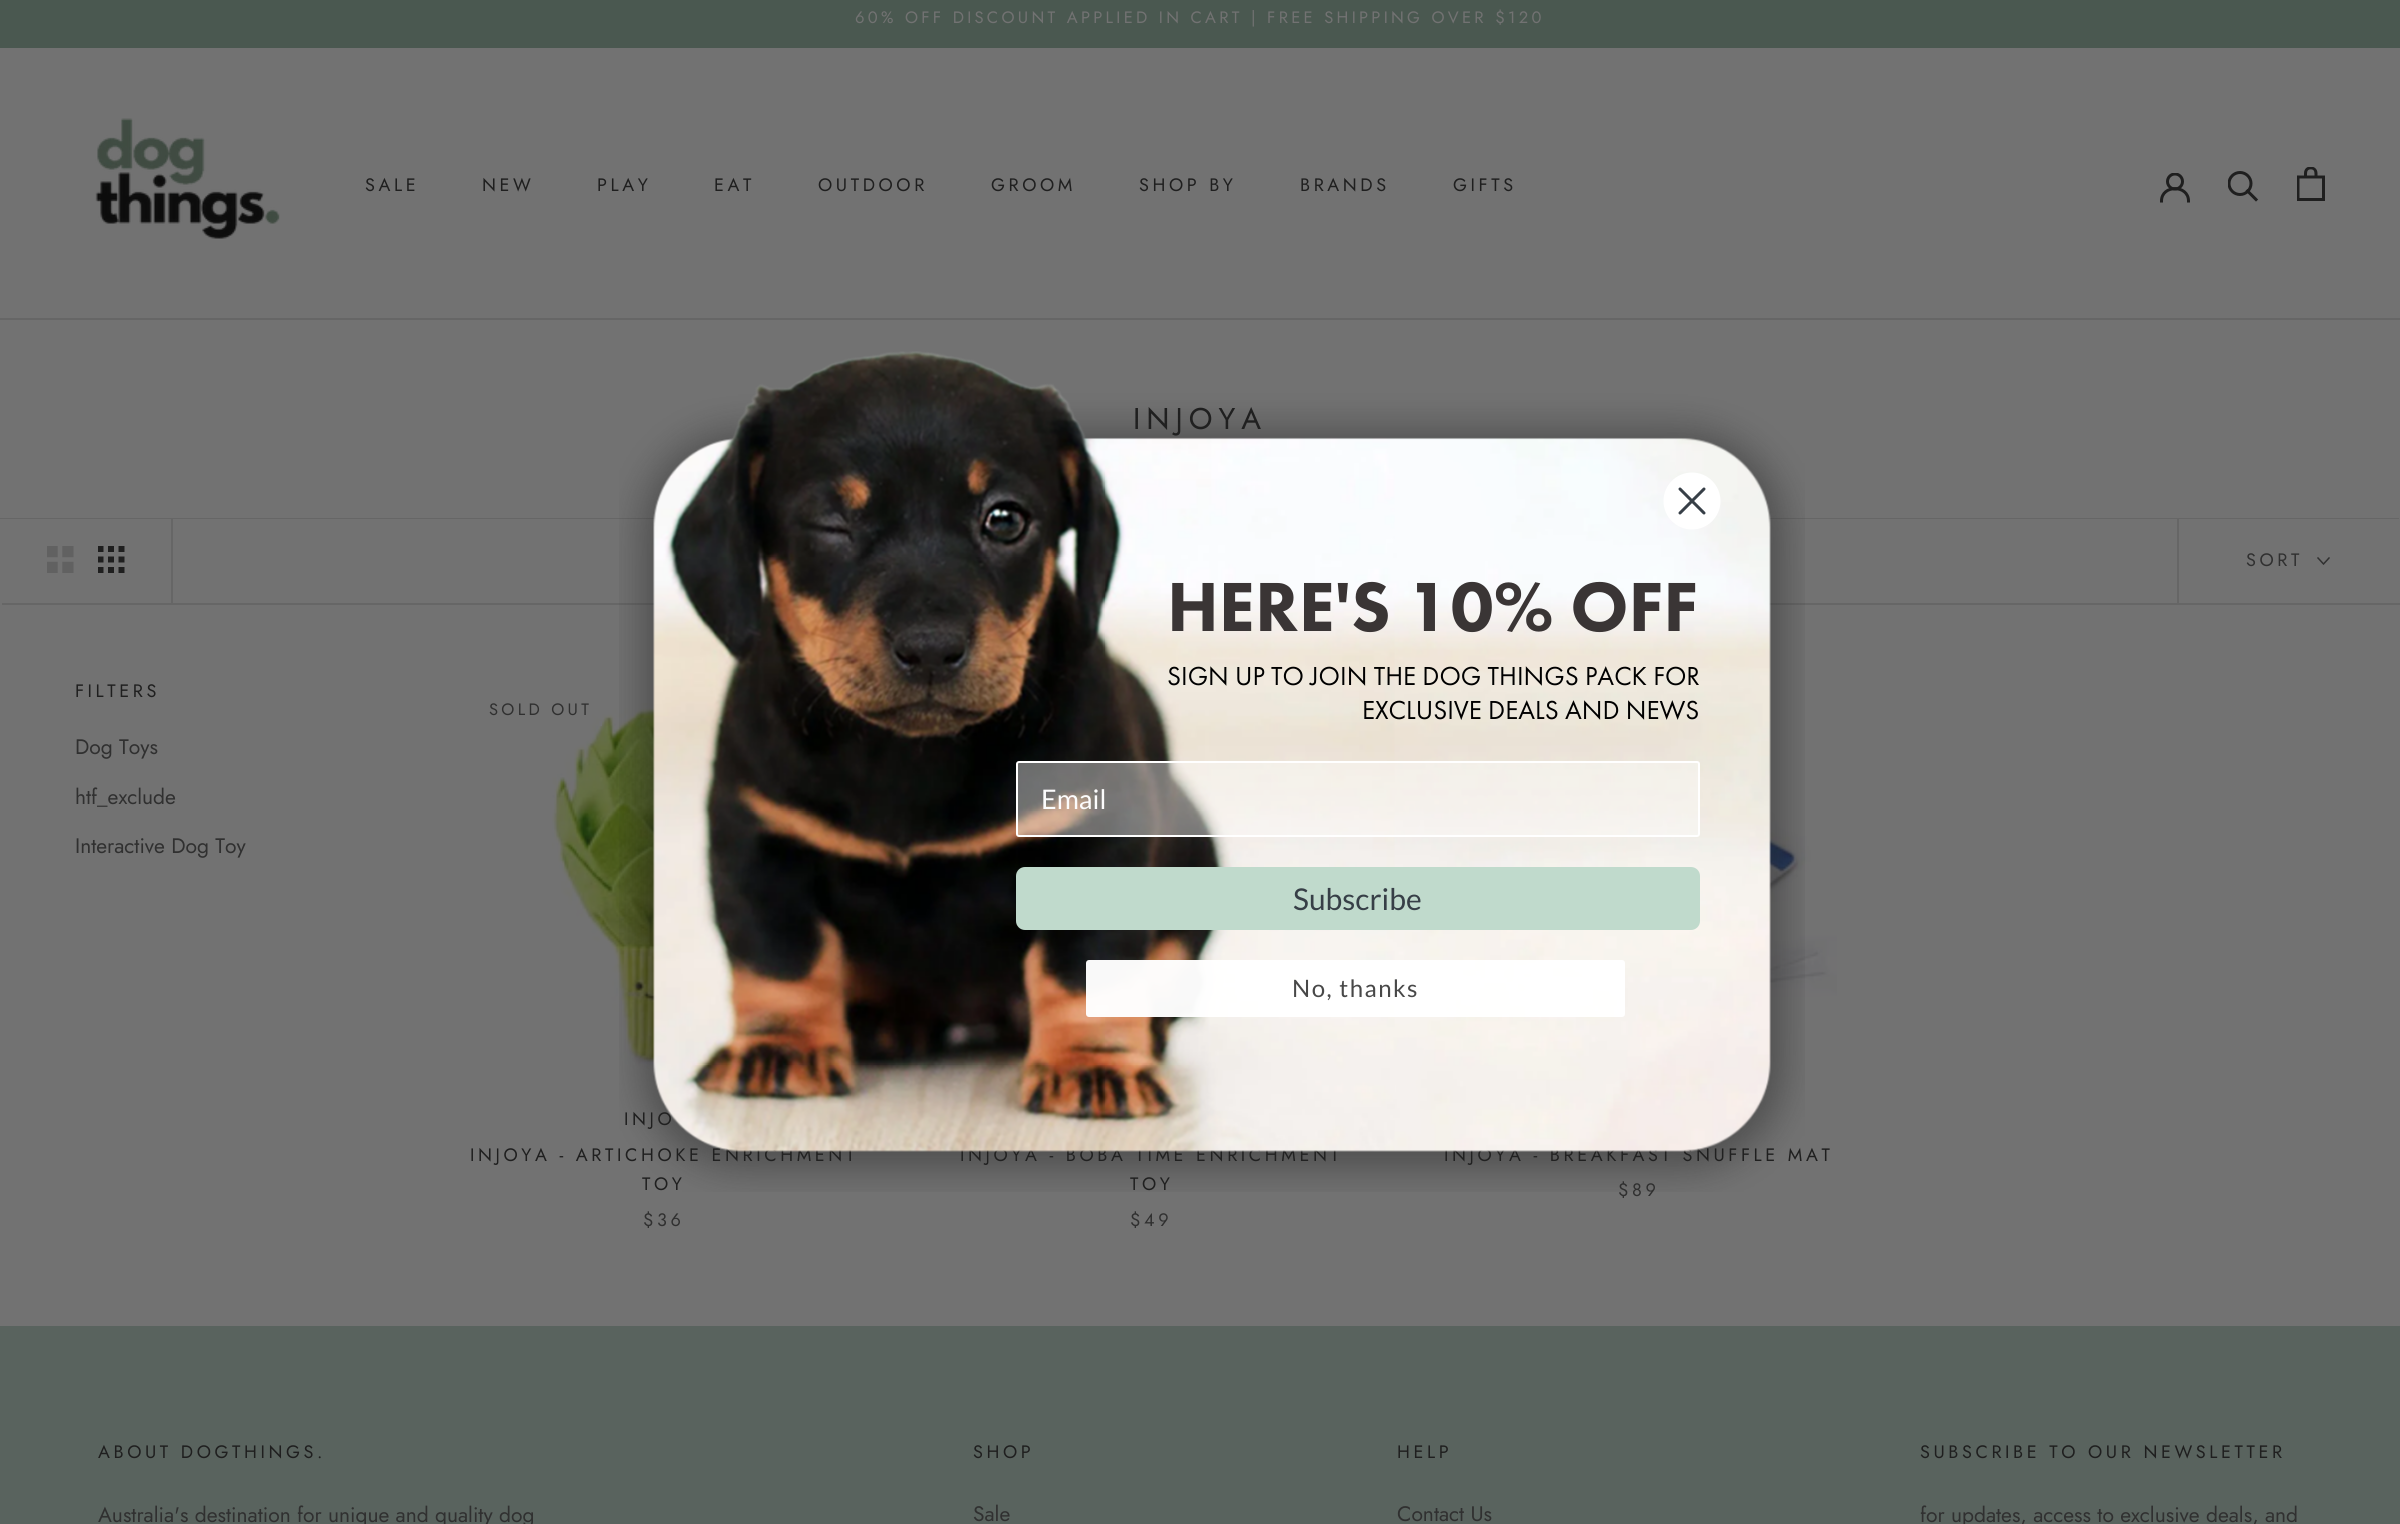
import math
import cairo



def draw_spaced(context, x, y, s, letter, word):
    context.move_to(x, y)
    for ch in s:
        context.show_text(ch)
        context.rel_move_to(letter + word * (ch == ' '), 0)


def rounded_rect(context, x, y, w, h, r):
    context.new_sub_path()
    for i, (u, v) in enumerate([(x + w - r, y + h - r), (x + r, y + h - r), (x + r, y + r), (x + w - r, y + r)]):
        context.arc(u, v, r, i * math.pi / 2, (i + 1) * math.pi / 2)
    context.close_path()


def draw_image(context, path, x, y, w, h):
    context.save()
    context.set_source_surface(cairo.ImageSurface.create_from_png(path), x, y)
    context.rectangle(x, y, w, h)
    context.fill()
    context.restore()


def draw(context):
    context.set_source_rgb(114 / 255, 114 / 255, 114 / 255)
    context.paint()
    context.set_source_rgb(74 / 255, 88 / 255, 80 / 255)
    context.rectangle(0, 0, 2400, 48)
    context.fill()
    context.set_source_rgb(102 / 255, 102 / 255, 102 / 255)
    context.rectangle(0, 318, 2400, 2)
    context.fill()
    draw_image(context, "images/1.png", 95, 118, 185, 121)
    context.new_path()
    context.move_to(2161.5, 201)
    context.curve_to(2161.5, 184.5, 2188.5, 184.5, 2188.5, 201)
    context.set_source_rgb(31 / 255, 31 / 255, 31 / 255)
    context.set_line_width(3)
    context.set_line_cap(cairo.LineCap.SQUARE)
    context.stroke()
    context.save()
    context.rectangle(2160, 173, 30, 30)
    context.clip()
    context.arc(2175, 181.5, 7.5, 0, 2 * math.pi)
    context.set_line_cap(cairo.LineCap.BUTT)
    context.stroke()
    context.restore()
    context.new_path()
    context.move_to(2256, 199.5)
    context.line_to(2247.5, 191)
    context.stroke()
    context.save()
    context.rectangle(2228, 171, 31, 32)
    context.clip()
    context.arc(2240, 183.5, 11, 0, 2 * math.pi)
    context.set_line_cap(cairo.LineCap.BUTT)
    context.stroke()
    context.restore()
    draw_image(context, "images/2.png", 2297, 167, 28, 34)
    context.set_source_rgb(102 / 255, 102 / 255, 102 / 255)
    context.new_path()
    context.move_to(-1, 518)
    context.line_to(-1, 602)
    context.line_to(0, 602)
    context.line_to(0, 519)
    context.line_to(2399, 519)
    context.line_to(2399, 518)
    context.close_path()
    context.fill()
    context.new_path()
    context.move_to(2, 603)
    context.line_to(2, 605)
    context.line_to(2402, 605)
    context.line_to(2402, 521)
    context.line_to(2400, 521)
    context.line_to(2400, 603)
    context.close_path()
    context.fill()
    context.rectangle(171, 519, 2, 84)
    context.fill()
    draw_image(context, "images/3.png", 47, 546, 27, 27)
    draw_image(context, "images/4.png", 98, 546, 27, 27)
    context.rectangle(2177, 519, 2, 84)
    context.fill()
    context.new_path()
    context.move_to(2329, 558)
    context.line_to(2323.5, 564)
    context.line_to(2318, 558)
    context.set_source_rgb(48 / 255, 48 / 255, 48 / 255)
    context.set_line_width(1.5)
    context.stroke()
    draw_image(context, "images/5.png", 552, 703, 104, 366)
    context.set_source_rgb(114 / 255, 114 / 255, 114 / 255)
    context.rectangle(599, 721, 3, 5)
    context.fill()
    draw_image(context, "images/6.png", 1769, 750, 68, 254)
    context.set_source_rgb(89 / 255, 99 / 255, 94 / 255)
    context.rectangle(0, 1326, 2400, 198)
    context.fill()
    context.select_font_face("Jost")
    context.set_font_size(16.5)
    context.set_source_rgb(114 / 255, 114 / 255, 114 / 255)
    draw_spaced(context, 855, 23, "60% OFF DISCOUNT APPLIED IN CART | FREE SHIPPING OVER $120", 3.3, 0)
    context.set_font_size(18)
    context.set_source_rgb(31 / 255, 31 / 255, 31 / 255)
    draw_spaced(context, 365, 191, "SALE", 3.6, 0)
    draw_spaced(context, 482, 191, "NEW", 3.6, 0)
    draw_spaced(context, 597, 191, "PLAY", 3.6, 0)
    draw_spaced(context, 714, 191, "EAT", 3.6, 0)
    draw_spaced(context, 818, 191, "OUTDOOR", 3.6, 0)
    draw_spaced(context, 991, 191, "GROOM", 3.6, 0)
    draw_spaced(context, 1139, 191, "SHOP BY", 3.6, 0)
    draw_spaced(context, 1300, 191, "BRANDS", 3.6, 0)
    draw_spaced(context, 1453, 191, "GIFTS", 3.6, 0)
    context.set_font_size(30)
    draw_spaced(context, 1133, 429, "INJOYA", 6, 0)
    context.set_font_size(18)
    context.set_source_rgb(48 / 255, 48 / 255, 48 / 255)
    draw_spaced(context, 2246, 566, "SORT", 3.6, 0)
    context.set_source_rgb(31 / 255, 31 / 255, 31 / 255)
    draw_spaced(context, 75, 697, "FILTERS", 3.6, 0)
    context.set_font_size(21)
    context.set_source_rgb(48 / 255, 48 / 255, 48 / 255)
    context.move_to(75, 754)
    context.show_text("Dog Toys")
    context.move_to(75, 804)
    context.show_text("htf_exclude")
    context.move_to(75, 853)
    context.show_text("Interactive Dog Toy")
    context.set_font_size(16.5)
    draw_spaced(context, 489, 715, "SOLD OUT", 3.3, 0)
    context.set_font_size(18)
    context.set_source_rgb(31 / 255, 31 / 255, 31 / 255)
    draw_spaced(context, 624, 1125, "INJO", 3.6, 0)
    draw_spaced(context, 470, 1161, "INJOYA - ARTICHOKE ENRICHMENT", 3.6, 0)
    draw_spaced(context, 642, 1190, "TOY", 3.6, 0)
    context.set_source_rgb(48 / 255, 48 / 255, 48 / 255)
    draw_spaced(context, 643, 1226, "$36", 3.6, 0)
    context.set_source_rgb(31 / 255, 31 / 255, 31 / 255)
    draw_spaced(context, 960, 1161, "INJOYA - BOBA TIME ENRICHMENT", 3.6, 0)
    draw_spaced(context, 1130, 1190, "TOY", 3.6, 0)
    context.set_source_rgb(48 / 255, 48 / 255, 48 / 255)
    draw_spaced(context, 1130, 1226, "$49", 3.6, 0)
    context.set_source_rgb(31 / 255, 31 / 255, 31 / 255)
    draw_spaced(context, 1444, 1161, "INJOYA - BREAKFAST SNUFFLE MAT", 3.6, 0)
    context.set_source_rgb(48 / 255, 48 / 255, 48 / 255)
    draw_spaced(context, 1618, 1196, "$89", 3.6, 0)
    context.set_source_rgb(31 / 255, 31 / 255, 31 / 255)
    draw_spaced(context, 98, 1458, "ABOUT DOGTHINGS.", 3.6, 0)
    context.set_font_size(21)
    context.set_source_rgb(48 / 255, 48 / 255, 48 / 255)
    context.move_to(98, 1522)
    context.show_text("Australia's destination for unique and quality dog")
    context.set_font_size(18)
    context.set_source_rgb(31 / 255, 31 / 255, 31 / 255)
    draw_spaced(context, 973, 1458, "SHOP", 3.6, 0)
    context.set_font_size(21)
    context.set_source_rgb(48 / 255, 48 / 255, 48 / 255)
    context.move_to(973, 1521)
    context.show_text("Sale")
    context.set_font_size(18)
    context.set_source_rgb(31 / 255, 31 / 255, 31 / 255)
    draw_spaced(context, 1397, 1458, "HELP", 3.6, 0)
    context.set_font_size(21)
    context.set_source_rgb(48 / 255, 48 / 255, 48 / 255)
    context.move_to(1397, 1521)
    context.show_text("Contact Us")
    context.set_font_size(18)
    context.set_source_rgb(31 / 255, 31 / 255, 31 / 255)
    draw_spaced(context, 1920, 1458, "SUBSCRIBE TO OUR NEWSLETTER", 3.6, 0)
    context.set_font_size(21)
    context.set_source_rgb(48 / 255, 48 / 255, 48 / 255)
    context.move_to(1920, 1522)
    context.show_text("for updates, access to exclusive deals, and")
    draw_image(context, "images/7.png", 619, 351, 1186, 841)
    context.set_source_rgb(1, 1, 1)
    context.arc(1692, 501, 28.5, 0, 2 * math.pi)
    context.fill()
    context.new_path()
    context.move_to(1680, 489)
    context.line_to(1704, 513)
    context.move_to(1680, 513)
    context.line_to(1704, 489)
    context.close_path()
    context.set_source_rgb(55 / 255, 63 / 255, 71 / 255)
    context.set_line_width(3)
    context.set_line_cap(cairo.LineCap.ROUND)
    context.set_line_join(cairo.LineJoin.ROUND)
    context.stroke()
    context.select_font_face("Futura PT Black")
    context.set_font_size(72)
    context.set_source_rgb(58 / 255, 53 / 255, 53 / 255)
    context.move_to(1167, 631)
    context.show_text("HERE'S 10% OFF")
    context.select_font_face("Futura PT")
    context.set_font_size(27)
    context.set_source_rgb(0, 0, 0)
    context.move_to(1167, 685)
    context.show_text("SIGN UP TO JOIN THE DOG THINGS PACK FOR")
    context.move_to(1362, 719)
    context.show_text("EXCLUSIVE DEALS AND NEWS")
    context.set_source_rgba(1, 1, 1, 0.4)
    rounded_rect(context, 1017, 762, 682, 74, 2)
    context.fill_preserve()
    context.set_source_rgb(1, 1, 1)
    context.set_line_width(2)
    context.set_line_cap(cairo.LineCap.BUTT)
    context.set_line_join(cairo.LineJoin.MITER)
    context.stroke()
    context.select_font_face("Lato")
    context.set_source_rgb(252 / 255, 252 / 255, 252 / 255)
    context.move_to(1041, 809)
    context.show_text("Email")
    context.set_source_rgb(192 / 255, 218 / 255, 204 / 255)
    rounded_rect(context, 1016, 867, 684, 63, 9)
    context.fill()
    context.set_font_size(30)
    context.set_source_rgb(55 / 255, 63 / 255, 71 / 255)
    context.move_to(1293, 910)
    context.show_text("Subscribe")
    context.set_source_rgba(1, 1, 1, 0.97)
    rounded_rect(context, 1086, 960, 539, 57, 3)
    context.fill()
    context.set_font_size(24)
    context.set_source_rgb(72 / 255, 72 / 255, 72 / 255)
    draw_spaced(context, 1292, 997, "No, thanks", 1.5, 0)


surface = cairo.ImageSurface(cairo.Format.RGB24, 2400, 1524)
context = cairo.Context(surface)
options = cairo.FontOptions()
options.set_hint_metrics(cairo.HintMetrics.OFF)
options.set_hint_style(cairo.HintStyle.NONE)
context.set_font_options(options)
context.set_miter_limit(4)
draw(context)
surface.write_to_png("out.png")
